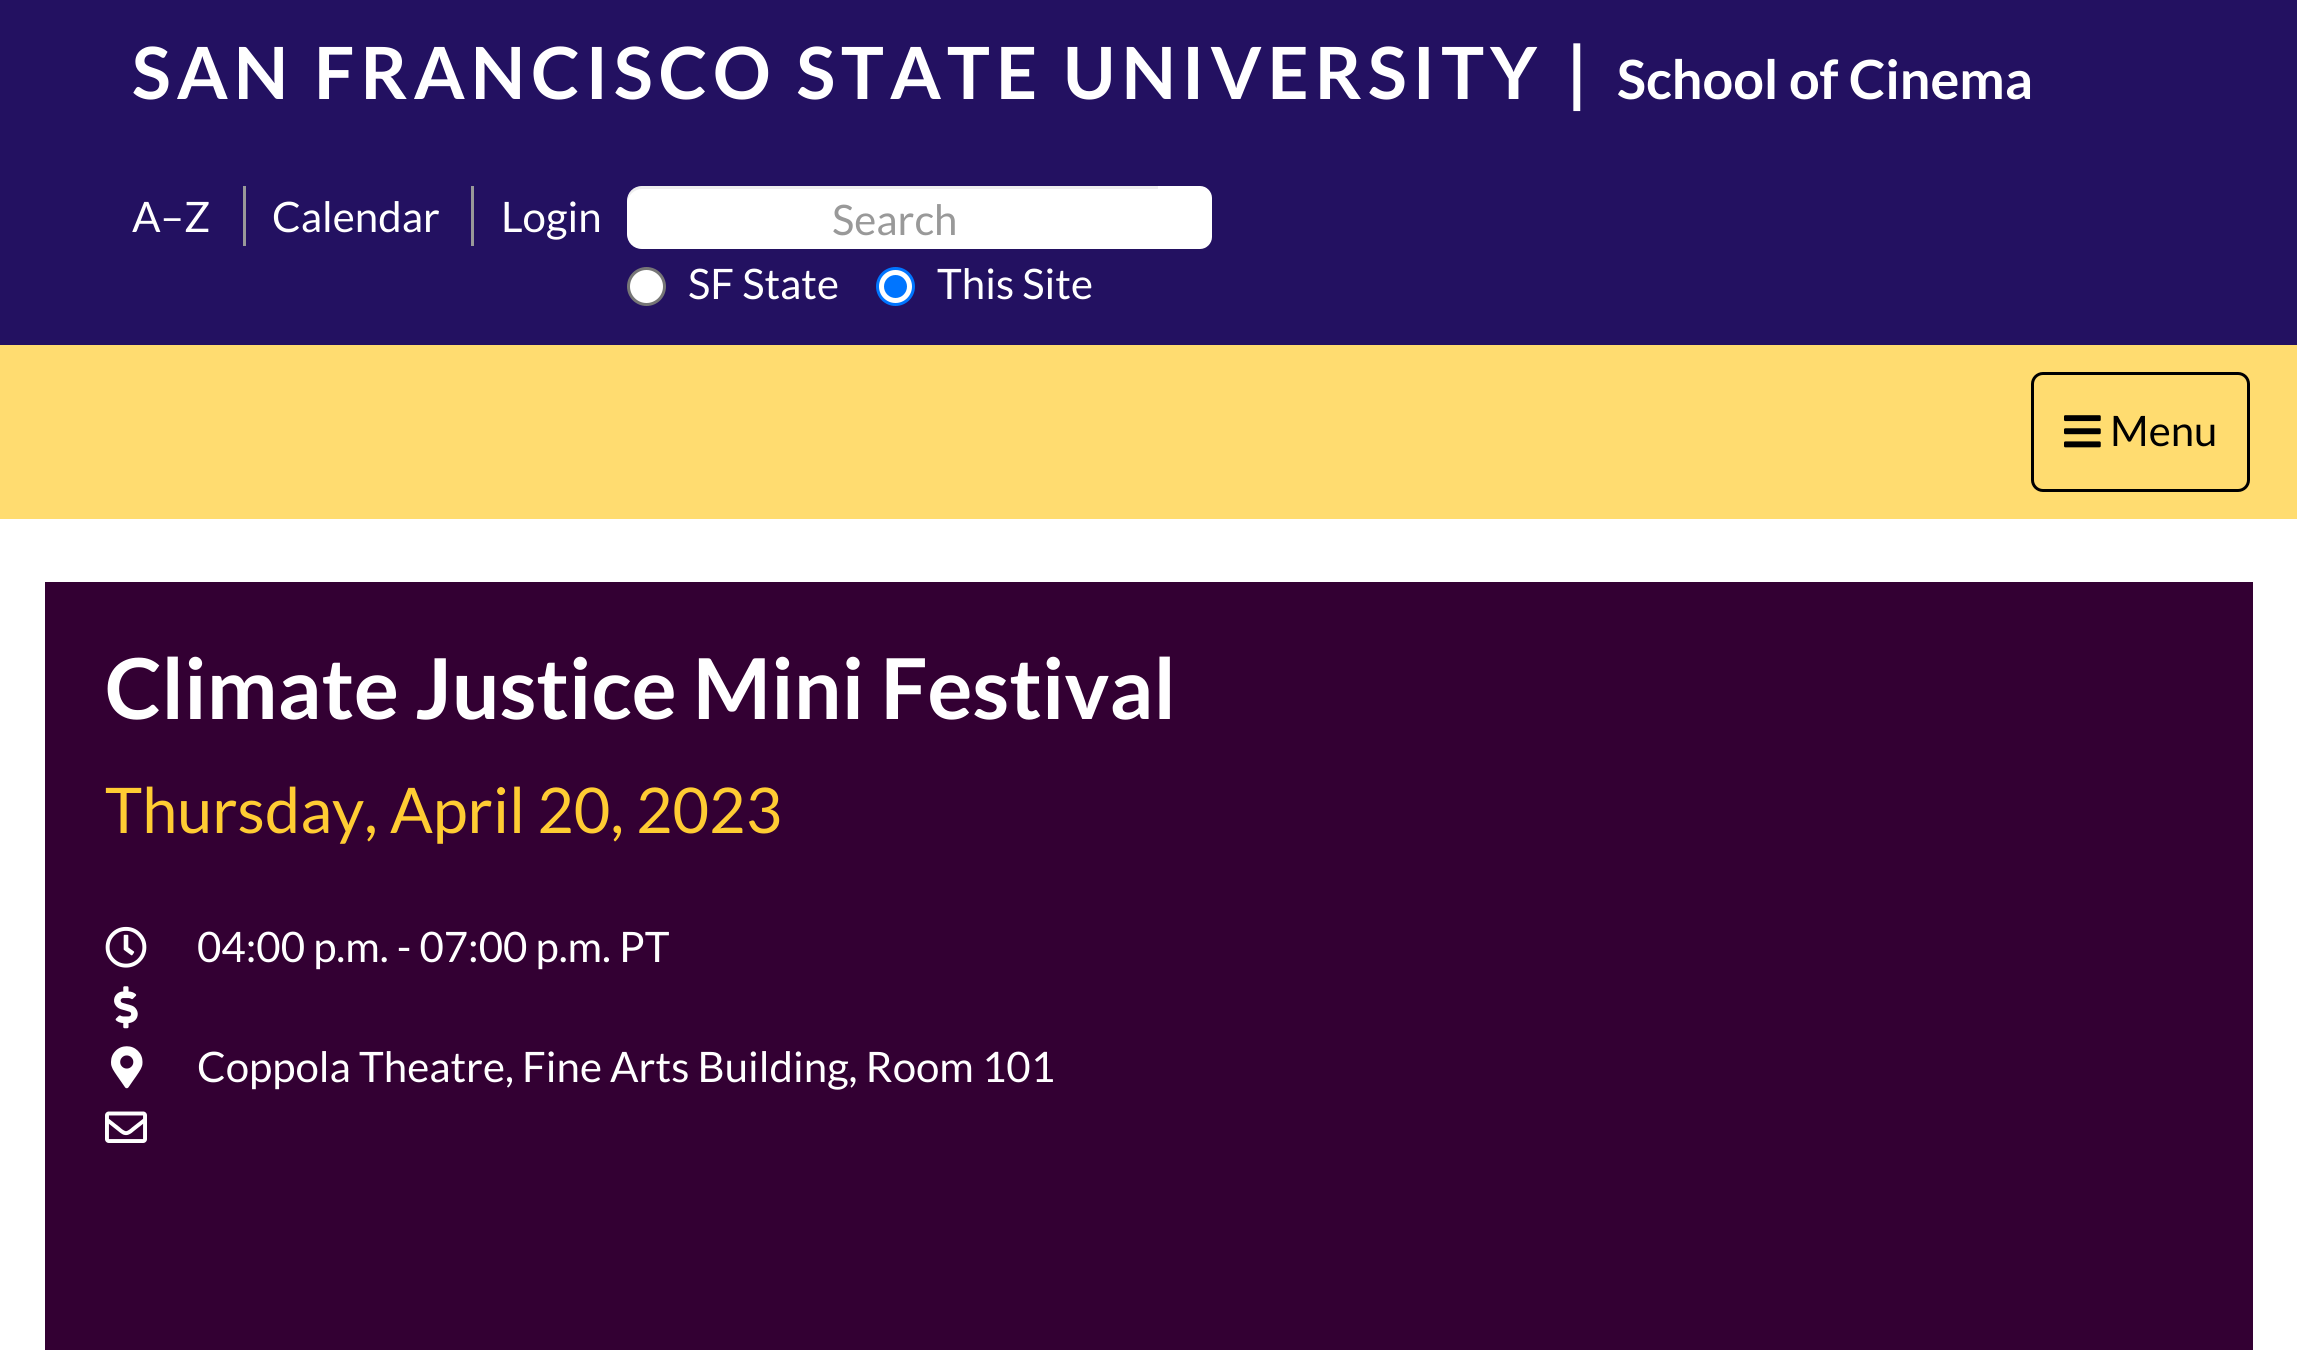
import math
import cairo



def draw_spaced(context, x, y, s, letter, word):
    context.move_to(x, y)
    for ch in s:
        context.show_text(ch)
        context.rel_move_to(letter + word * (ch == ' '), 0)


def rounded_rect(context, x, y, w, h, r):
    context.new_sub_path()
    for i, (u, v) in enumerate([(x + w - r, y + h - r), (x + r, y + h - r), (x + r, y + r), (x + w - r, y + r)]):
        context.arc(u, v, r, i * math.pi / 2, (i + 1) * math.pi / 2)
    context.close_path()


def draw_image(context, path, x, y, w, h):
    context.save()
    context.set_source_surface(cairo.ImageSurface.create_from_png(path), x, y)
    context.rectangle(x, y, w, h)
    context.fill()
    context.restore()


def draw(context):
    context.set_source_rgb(1, 1, 1)
    context.paint()
    context.set_source_rgb(35 / 255, 17 / 255, 97 / 255)
    context.rectangle(0, 0, 2297, 345)
    context.fill()
    context.set_source_rgb(153 / 255, 153 / 255, 153 / 255)
    context.rectangle(243, 186, 3, 60)
    context.fill()
    context.rectangle(471, 186, 3, 60)
    context.fill()
    context.set_source_rgb(1, 1, 1)
    context.new_path()
    context.move_to(642, 186)
    context.line_to(1161, 186)
    context.line_to(1161, 249)
    context.line_to(642, 249)
    context.curve_to(633.5, 249, 627, 242.5, 627, 234)
    context.line_to(627, 201)
    context.curve_to(627, 192.5, 633.5, 186, 642, 186)
    context.close_path()
    context.fill()
    context.set_source_rgba(0, 0, 0, 0.07)
    context.new_path()
    context.move_to(642, 189)
    context.line_to(1161, 189)
    context.line_to(1161, 186)
    context.line_to(642, 186)
    context.curve_to(631, 186, 627, 195, 627, 204)
    context.curve_to(627, 196, 634, 189, 642, 189)
    context.close_path()
    context.fill()
    context.set_source_rgb(1, 1, 1)
    context.new_path()
    context.move_to(1158, 186)
    context.line_to(1200, 186)
    context.curve_to(1206.5, 186, 1212, 191.5, 1212, 198)
    context.line_to(1212, 237)
    context.curve_to(1212, 243.5, 1206.5, 249, 1200, 249)
    context.line_to(1158, 249)
    context.close_path()
    context.fill()
    context.arc(646.5, 286.5, 18, 0, 2 * math.pi)
    context.fill_preserve()
    context.set_source_rgb(118 / 255, 118 / 255, 118 / 255)
    context.set_line_width(3)
    context.stroke()
    context.set_source_rgb(1, 1, 1)
    context.arc(895.5, 286.5, 18, 0, 2 * math.pi)
    context.fill_preserve()
    context.set_source_rgb(0, 117 / 255, 1)
    context.stroke()
    context.arc(895.5, 286.5, 11.5, 0, 2 * math.pi)
    context.fill()
    context.set_source_rgb(1, 220 / 255, 112 / 255)
    context.rectangle(0, 345, 2297, 174)
    context.fill()
    rounded_rect(context, 2032.5, 373.5, 216, 117, 10.5)
    context.set_source_rgb(0, 0, 0)
    context.stroke()
    draw_image(context, "images/1.png", 2064, 415, 37, 33)
    context.set_source_rgb(51 / 255, 0, 51 / 255)
    context.rectangle(45, 582, 2208, 768)
    context.fill()
    draw_image(context, "images/2.png", 105, 926, 42, 42)
    draw_image(context, "images/3.png", 114, 986, 24, 43)
    draw_image(context, "images/4.png", 111, 1046, 32, 43)
    draw_image(context, "images/5.png", 105, 1111, 42, 32)
    context.select_font_face("Lato", cairo.FontSlant.NORMAL, cairo.FontWeight.BOLD)
    context.set_font_size(72)
    context.set_source_rgb(1, 1, 1)
    draw_spaced(context, 132, 99, "SAN FRANCISCO STATE UNIVERSITY", 6, 0)
    draw_spaced(context, 1566, 99, "|", 6, 0)
    context.set_font_size(54)
    context.move_to(1617, 99)
    context.show_text("School of Cinema")
    context.select_font_face("Lato")
    context.set_font_size(42)
    context.move_to(132, 232)
    context.show_text("A–Z")
    context.move_to(272, 232)
    context.show_text("Calendar")
    context.move_to(501, 232)
    context.show_text("Login")
    context.set_source_rgb(153 / 255, 153 / 255, 153 / 255)
    context.move_to(832, 235)
    context.show_text("Search")
    context.set_source_rgb(1, 1, 1)
    context.move_to(688, 299)
    context.show_text("SF State")
    context.move_to(937, 299)
    context.show_text("This Site")
    context.set_source_rgb(0, 0, 0)
    context.move_to(2110, 446)
    context.show_text("Menu")
    context.select_font_face("Lato", cairo.FontSlant.NORMAL, cairo.FontWeight.BOLD)
    context.set_font_size(84)
    context.set_source_rgb(1, 1, 1)
    context.move_to(105, 719)
    context.show_text("Climate Justice Mini Festival")
    context.select_font_face("Lato")
    context.set_font_size(63)
    context.set_source_rgb(1, 204 / 255, 51 / 255)
    context.move_to(105, 833)
    context.show_text("Thursday, April 20, 2023")
    context.set_font_size(42)
    context.set_source_rgb(1, 1, 1)
    context.move_to(197, 962)
    context.show_text("04:00 p.m. - 07:00 p.m. PT")
    context.move_to(197, 1082)
    context.show_text("Coppola Theatre, Fine Arts Building, Room 101")


surface = cairo.ImageSurface(cairo.Format.RGB24, 2297, 1350)
context = cairo.Context(surface)
options = cairo.FontOptions()
options.set_hint_metrics(cairo.HintMetrics.OFF)
options.set_hint_style(cairo.HintStyle.NONE)
context.set_font_options(options)
context.set_miter_limit(4)
draw(context)
surface.write_to_png("out.png")
